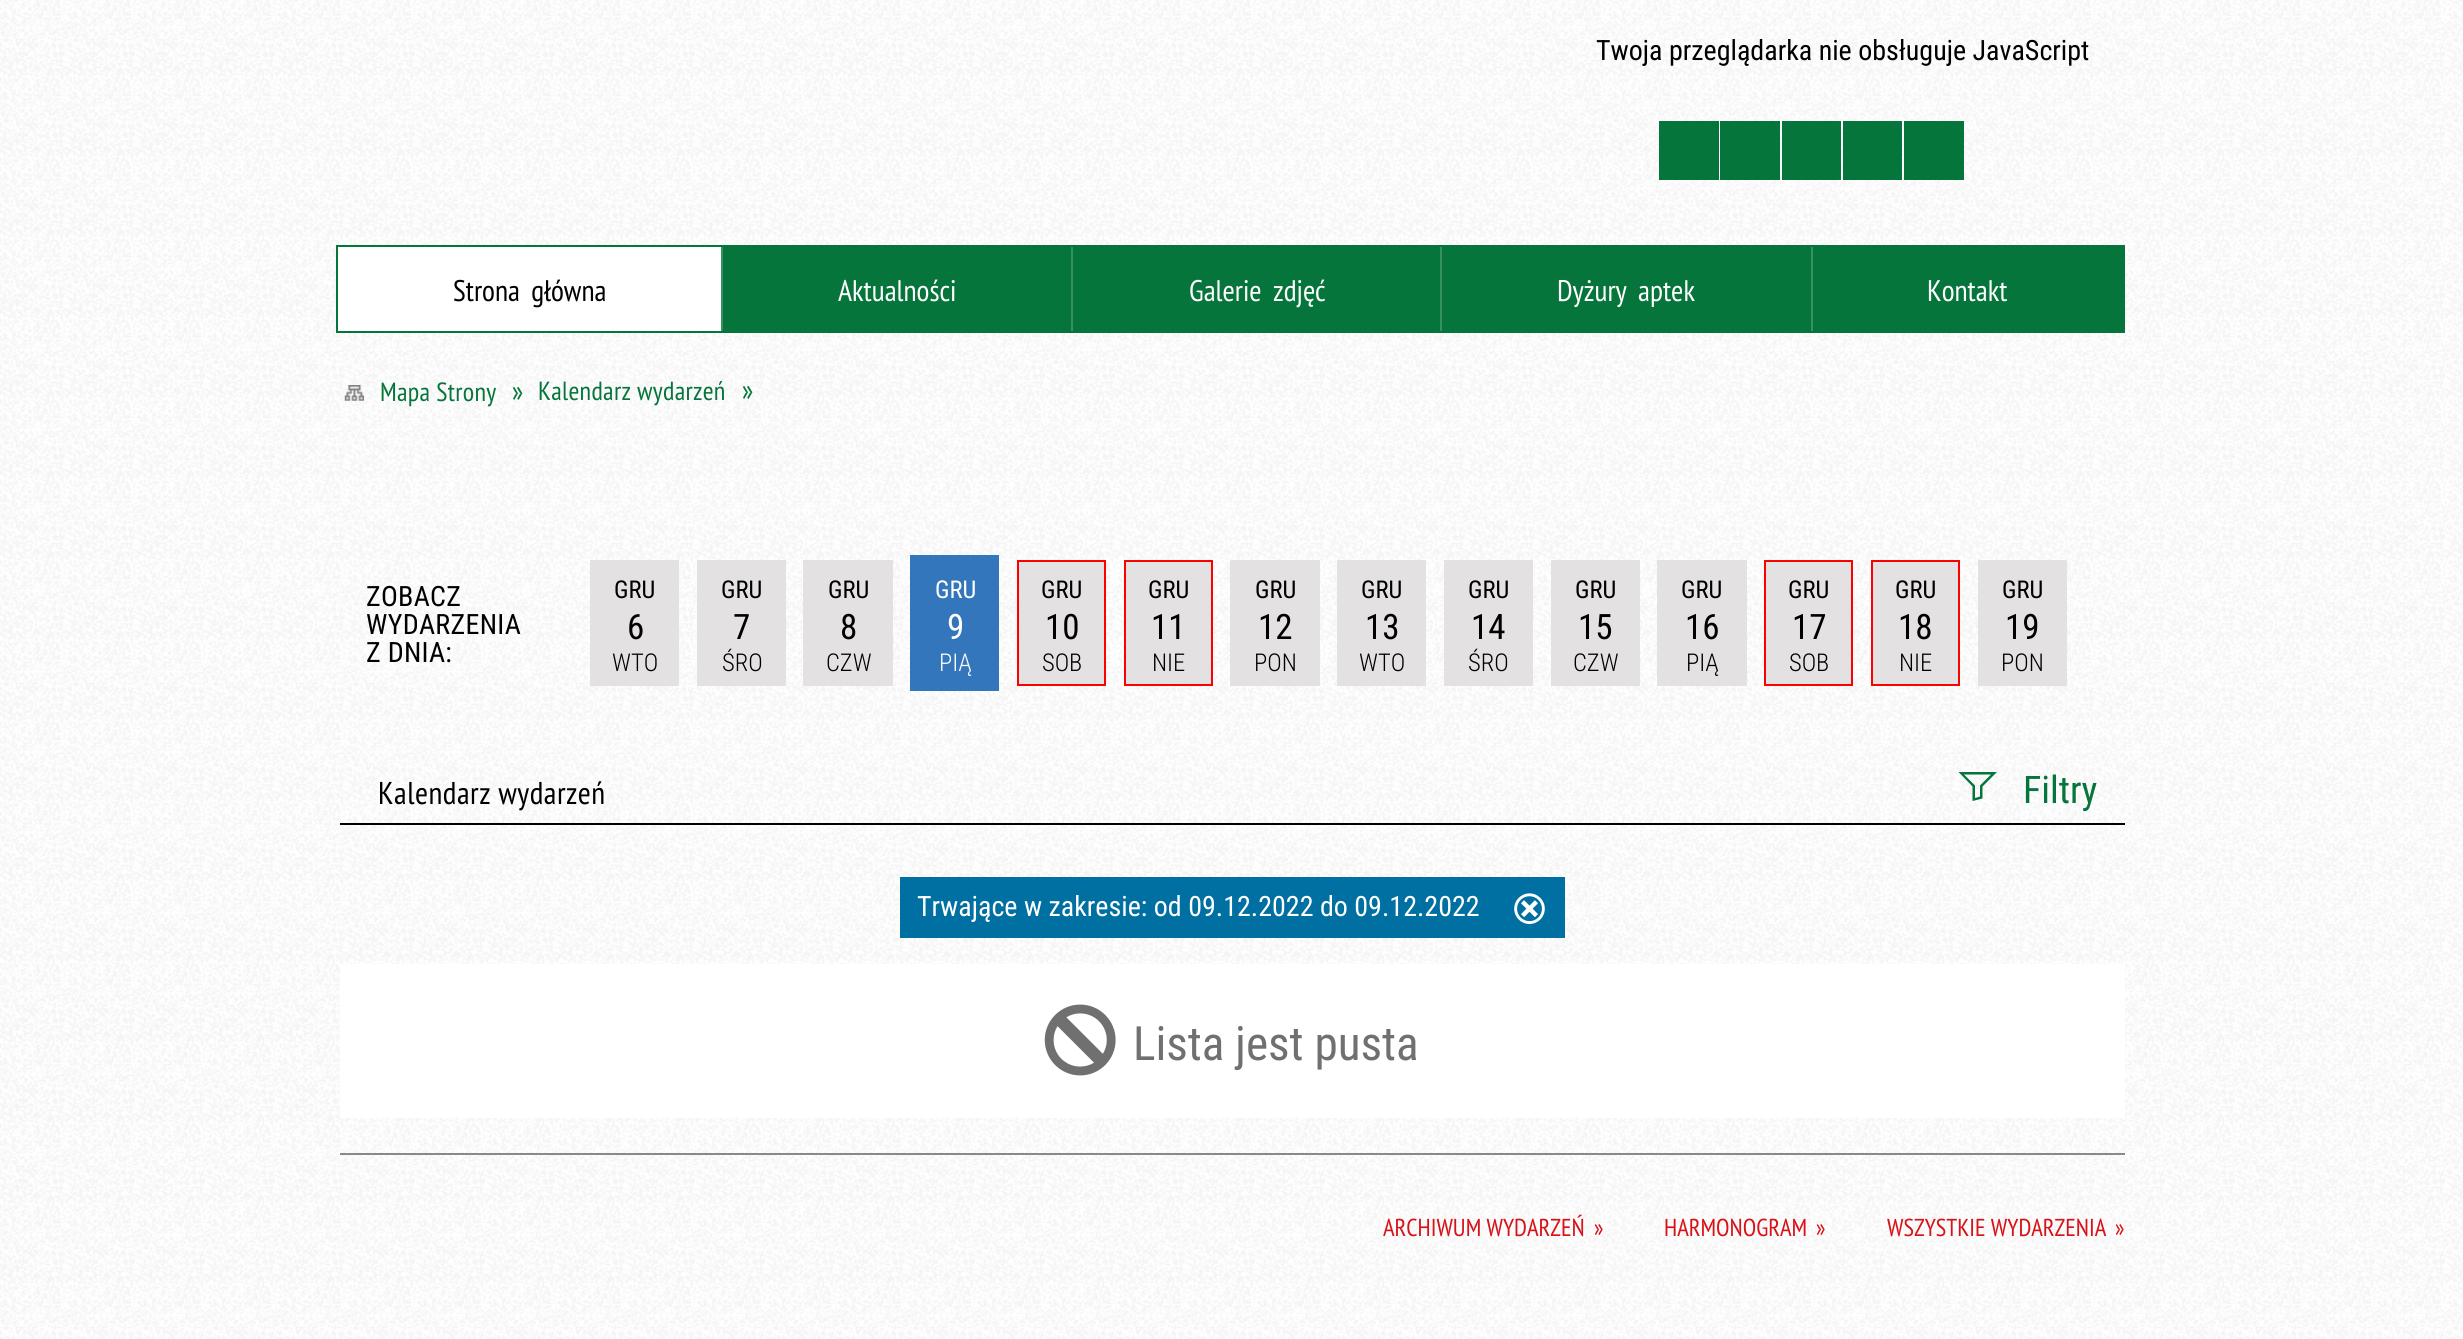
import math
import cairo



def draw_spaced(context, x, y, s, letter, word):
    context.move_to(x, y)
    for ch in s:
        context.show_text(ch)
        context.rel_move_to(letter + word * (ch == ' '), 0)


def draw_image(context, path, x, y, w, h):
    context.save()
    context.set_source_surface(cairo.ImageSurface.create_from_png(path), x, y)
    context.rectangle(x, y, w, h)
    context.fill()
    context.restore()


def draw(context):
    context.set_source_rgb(1, 1, 1)
    context.paint()
    draw_image(context, "images/1.png", 0, 0, 2463, 1339)
    context.set_source_rgb(5 / 255, 117 / 255, 59 / 255)
    context.rectangle(1659, 121, 60, 59)
    context.fill()
    context.rectangle(1720, 121, 60, 59)
    context.fill()
    context.rectangle(1782, 121, 59, 59)
    context.fill()
    context.rectangle(1843, 121, 59, 59)
    context.fill()
    context.rectangle(1904, 121, 60, 59)
    context.fill()
    context.rectangle(336, 245, 1789, 88)
    context.fill()
    context.set_source_rgb(1, 1, 1)
    context.rectangle(338, 247, 383, 84)
    context.fill()
    context.set_source_rgb(55 / 255, 145 / 255, 98 / 255)
    context.rectangle(721, 247, 2, 84)
    context.fill()
    context.rectangle(1071, 247, 2, 84)
    context.fill()
    context.rectangle(1440, 247, 2, 84)
    context.fill()
    context.rectangle(1811, 247, 2, 84)
    context.fill()
    draw_image(context, "images/2.png", 344, 385, 20, 16)
    context.set_source_rgb(227 / 255, 225 / 255, 226 / 255)
    context.rectangle(590, 560, 89, 126)
    context.fill()
    context.rectangle(697, 560, 89, 126)
    context.fill()
    context.rectangle(803, 560, 90, 126)
    context.fill()
    context.set_source_rgb(51 / 255, 118 / 255, 188 / 255)
    context.rectangle(910, 555, 89, 136)
    context.fill()
    context.set_source_rgb(227 / 255, 225 / 255, 226 / 255)
    context.rectangle(1018, 561, 87, 124)
    context.fill_preserve()
    context.set_source_rgb(1, 0, 0)
    context.stroke()
    context.set_source_rgb(227 / 255, 225 / 255, 226 / 255)
    context.rectangle(1125, 561, 87, 124)
    context.fill_preserve()
    context.set_source_rgb(1, 0, 0)
    context.stroke()
    context.set_source_rgb(227 / 255, 225 / 255, 226 / 255)
    context.rectangle(1230, 560, 90, 126)
    context.fill()
    context.rectangle(1337, 560, 89, 126)
    context.fill()
    context.rectangle(1444, 560, 89, 126)
    context.fill()
    context.rectangle(1551, 560, 89, 126)
    context.fill()
    context.rectangle(1657, 560, 90, 126)
    context.fill()
    context.rectangle(1765, 561, 87, 124)
    context.fill_preserve()
    context.set_source_rgb(1, 0, 0)
    context.stroke()
    context.set_source_rgb(227 / 255, 225 / 255, 226 / 255)
    context.rectangle(1872, 561, 87, 124)
    context.fill_preserve()
    context.set_source_rgb(1, 0, 0)
    context.stroke()
    context.set_source_rgb(227 / 255, 225 / 255, 226 / 255)
    context.rectangle(1978, 560, 89, 126)
    context.fill()
    context.set_source_rgb(0, 0, 0)
    context.rectangle(340, 823, 1785, 2)
    context.fill()
    context.set_source_rgb(5 / 255, 117 / 255, 59 / 255)
    context.new_path()
    context.move_to(1991, 774.5)
    context.line_to(1964, 774.5)
    context.line_to(1975, 785.5)
    context.line_to(1975, 798)
    context.line_to(1980, 796.5)
    context.line_to(1980, 785.5)
    context.close_path()
    context.move_to(1997, 772)
    context.line_to(1982.5, 786.5)
    context.line_to(1982.5, 798.5)
    context.line_to(1972.5, 801)
    context.line_to(1972.5, 786.5)
    context.line_to(1958.5, 772)
    context.close_path()
    context.fill()
    context.set_source_rgb(0, 111 / 255, 162 / 255)
    context.rectangle(900, 877, 665, 61)
    context.fill()
    draw_image(context, "images/3.png", 1514, 893, 31, 31)
    context.set_source_rgb(1, 1, 1)
    context.rectangle(340, 964, 1785, 154)
    context.fill()
    draw_image(context, "images/4.png", 1044, 1004, 72, 72)
    context.set_source_rgb(137 / 255, 137 / 255, 137 / 255)
    context.rectangle(340, 1153, 1785, 2)
    context.fill()
    context.select_font_face("Roboto Condensed")
    context.set_font_size(28)
    context.set_source_rgb(0, 0, 0)
    context.move_to(1596, 60)
    context.show_text("Twoja przeglądarka nie obsługuje JavaScript")
    context.select_font_face("PT Sans Narrow")
    context.set_font_size(29.75)
    draw_spaced(context, 453, 301, "Strona główna", 0, 5)
    context.set_source_rgb(1, 1, 1)
    context.move_to(838, 301)
    context.show_text("Aktualności")
    draw_spaced(context, 1189, 301, "Galerie zdjęć", 0, 5)
    draw_spaced(context, 1557, 301, "Dyżury aptek", 0, 5)
    context.move_to(1927, 301)
    context.show_text("Kontakt")
    context.set_font_size(26.25)
    context.set_source_rgb(5 / 255, 117 / 255, 59 / 255)
    draw_spaced(context, 380, 401, "Mapa Strony", 0.3, 0)
    context.set_font_size(29)
    draw_spaced(context, 512, 401, "»", 0.3, 0)
    context.set_font_size(26.25)
    draw_spaced(context, 538, 400, "Kalendarz wydarzeń", 0.3, 0)
    context.set_font_size(29)
    draw_spaced(context, 742, 400, "»", 0.3, 0)
    context.select_font_face("Roboto Condensed")
    context.set_font_size(28)
    context.set_source_rgb(0, 0, 0)
    draw_spaced(context, 366, 606, "ZOBACZ", 0.3, 0)
    draw_spaced(context, 366, 634, "WYDARZENIA", 0.3, 0)
    draw_spaced(context, 366, 662, "Z DNIA:", 0.3, 0)
    context.set_font_size(24.5)
    context.move_to(614, 598)
    context.show_text("GRU")
    context.set_font_size(35)
    context.move_to(627, 639)
    context.show_text("6")
    context.select_font_face("Roboto Condensed Light")
    context.set_font_size(24.5)
    context.move_to(612, 671)
    context.show_text("WTO")
    context.select_font_face("Roboto Condensed")
    context.move_to(721, 598)
    context.show_text("GRU")
    context.set_font_size(35)
    context.move_to(733, 639)
    context.show_text("7")
    context.select_font_face("Roboto Condensed Light")
    context.set_font_size(24.5)
    context.move_to(722, 671)
    context.show_text("ŚRO")
    context.select_font_face("Roboto Condensed")
    context.move_to(828, 598)
    context.show_text("GRU")
    context.set_font_size(35)
    context.move_to(840, 639)
    context.show_text("8")
    context.select_font_face("Roboto Condensed Light")
    context.set_font_size(24.5)
    context.move_to(826, 671)
    context.show_text("CZW")
    context.select_font_face("Roboto Condensed")
    context.set_source_rgb(1, 1, 1)
    context.move_to(935, 598)
    context.show_text("GRU")
    context.set_font_size(35)
    context.move_to(947, 639)
    context.show_text("9")
    context.select_font_face("Roboto Condensed Light")
    context.set_font_size(24.5)
    context.move_to(939, 671)
    context.show_text("PIĄ")
    context.select_font_face("Roboto Condensed")
    context.set_source_rgb(0, 0, 0)
    context.move_to(1041, 598)
    context.show_text("GRU")
    context.set_font_size(35)
    context.move_to(1045, 639)
    context.show_text("10")
    context.select_font_face("Roboto Condensed Light")
    context.set_font_size(24.5)
    context.move_to(1042, 671)
    context.show_text("SOB")
    context.select_font_face("Roboto Condensed")
    context.move_to(1148, 598)
    context.show_text("GRU")
    context.set_font_size(35)
    context.move_to(1151, 639)
    context.show_text("11")
    context.select_font_face("Roboto Condensed Light")
    context.set_font_size(24.5)
    context.move_to(1152, 671)
    context.show_text("NIE")
    context.select_font_face("Roboto Condensed")
    context.move_to(1255, 598)
    context.show_text("GRU")
    context.set_font_size(35)
    context.move_to(1258, 639)
    context.show_text("12")
    context.select_font_face("Roboto Condensed Light")
    context.set_font_size(24.5)
    context.move_to(1254, 671)
    context.show_text("PON")
    context.select_font_face("Roboto Condensed")
    context.move_to(1361, 598)
    context.show_text("GRU")
    context.set_font_size(35)
    context.move_to(1365, 639)
    context.show_text("13")
    context.select_font_face("Roboto Condensed Light")
    context.set_font_size(24.5)
    context.move_to(1359, 671)
    context.show_text("WTO")
    context.select_font_face("Roboto Condensed")
    context.move_to(1468, 598)
    context.show_text("GRU")
    context.set_font_size(35)
    context.move_to(1471, 639)
    context.show_text("14")
    context.select_font_face("Roboto Condensed Light")
    context.set_font_size(24.5)
    context.move_to(1468, 671)
    context.show_text("ŚRO")
    context.select_font_face("Roboto Condensed")
    context.move_to(1575, 598)
    context.show_text("GRU")
    context.set_font_size(35)
    context.move_to(1578, 639)
    context.show_text("15")
    context.select_font_face("Roboto Condensed Light")
    context.set_font_size(24.5)
    context.move_to(1573, 671)
    context.show_text("CZW")
    context.select_font_face("Roboto Condensed")
    context.move_to(1681, 598)
    context.show_text("GRU")
    context.set_font_size(35)
    context.move_to(1685, 639)
    context.show_text("16")
    context.select_font_face("Roboto Condensed Light")
    context.set_font_size(24.5)
    context.move_to(1686, 671)
    context.show_text("PIĄ")
    context.select_font_face("Roboto Condensed")
    context.move_to(1788, 598)
    context.show_text("GRU")
    context.set_font_size(35)
    context.move_to(1792, 639)
    context.show_text("17")
    context.select_font_face("Roboto Condensed Light")
    context.set_font_size(24.5)
    context.move_to(1789, 671)
    context.show_text("SOB")
    context.select_font_face("Roboto Condensed")
    context.move_to(1895, 598)
    context.show_text("GRU")
    context.set_font_size(35)
    context.move_to(1898, 639)
    context.show_text("18")
    context.select_font_face("Roboto Condensed Light")
    context.set_font_size(24.5)
    context.move_to(1899, 671)
    context.show_text("NIE")
    context.select_font_face("Roboto Condensed")
    context.move_to(2002, 598)
    context.show_text("GRU")
    context.set_font_size(35)
    context.move_to(2005, 639)
    context.show_text("19")
    context.select_font_face("Roboto Condensed Light")
    context.set_font_size(24.5)
    context.move_to(2001, 671)
    context.show_text("PON")
    context.select_font_face("PT Sans Narrow")
    context.set_font_size(31.5)
    draw_spaced(context, 378, 804, "Kalendarz wydarzeń", 0.5, 0)
    context.select_font_face("Roboto Condensed")
    context.set_font_size(38)
    context.set_source_rgb(5 / 255, 117 / 255, 59 / 255)
    context.move_to(2023, 803)
    context.show_text("Filtry")
    context.set_font_size(28)
    context.set_source_rgb(1, 1, 1)
    context.move_to(917, 916)
    context.show_text("Trwające w zakresie: od 09.12.2022 do 09.12.2022")
    context.set_font_size(47.25)
    context.set_source_rgb(112 / 255, 112 / 255, 112 / 255)
    context.move_to(1133, 1060)
    context.show_text("Lista jest pusta")
    context.select_font_face("PT Sans Narrow")
    context.set_font_size(24.5)
    context.set_source_rgb(215 / 255, 19 / 255, 25 / 255)
    context.move_to(1383, 1236)
    context.show_text("ARCHIWUM WYDARZEŃ")
    context.move_to(1594, 1236)
    context.show_text("»")
    context.move_to(1664, 1236)
    context.show_text("HARMONOGRAM")
    context.move_to(1816, 1236)
    context.show_text("»")
    context.move_to(1887, 1236)
    context.show_text("WSZYSTKIE WYDARZENIA")
    context.move_to(2115, 1236)
    context.show_text("»")


surface = cairo.ImageSurface(cairo.Format.RGB24, 2463, 1339)
context = cairo.Context(surface)
options = cairo.FontOptions()
options.set_hint_metrics(cairo.HintMetrics.OFF)
options.set_hint_style(cairo.HintStyle.NONE)
context.set_font_options(options)
context.set_miter_limit(4)
draw(context)
surface.write_to_png("out.png")
